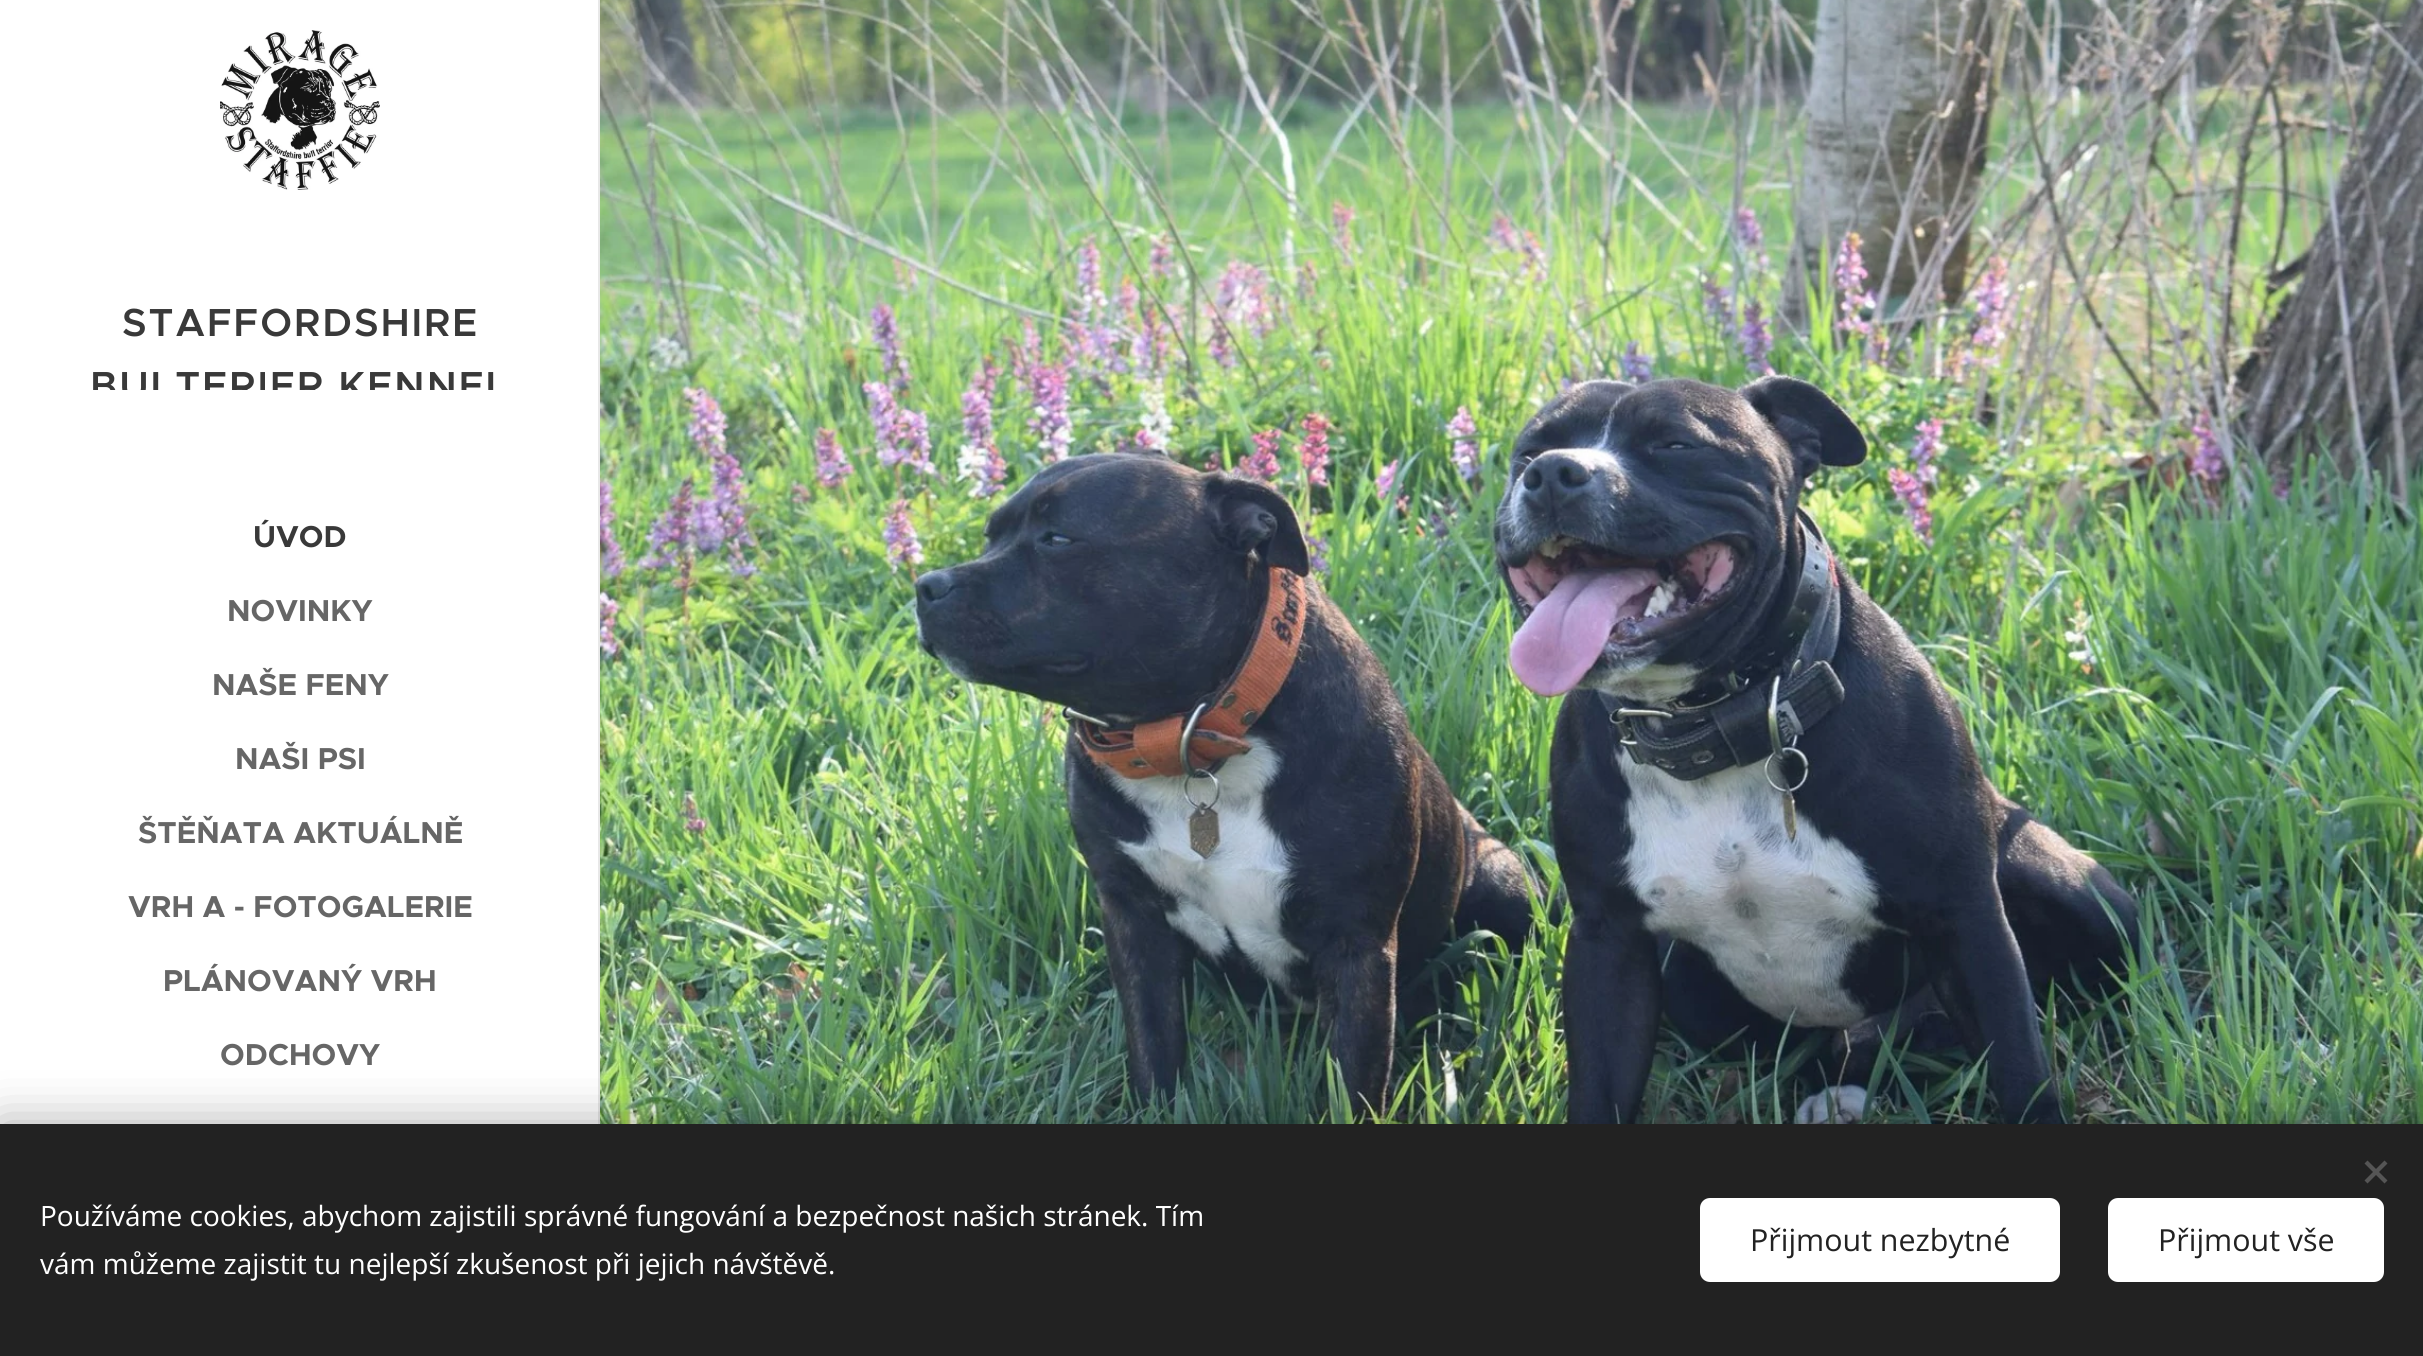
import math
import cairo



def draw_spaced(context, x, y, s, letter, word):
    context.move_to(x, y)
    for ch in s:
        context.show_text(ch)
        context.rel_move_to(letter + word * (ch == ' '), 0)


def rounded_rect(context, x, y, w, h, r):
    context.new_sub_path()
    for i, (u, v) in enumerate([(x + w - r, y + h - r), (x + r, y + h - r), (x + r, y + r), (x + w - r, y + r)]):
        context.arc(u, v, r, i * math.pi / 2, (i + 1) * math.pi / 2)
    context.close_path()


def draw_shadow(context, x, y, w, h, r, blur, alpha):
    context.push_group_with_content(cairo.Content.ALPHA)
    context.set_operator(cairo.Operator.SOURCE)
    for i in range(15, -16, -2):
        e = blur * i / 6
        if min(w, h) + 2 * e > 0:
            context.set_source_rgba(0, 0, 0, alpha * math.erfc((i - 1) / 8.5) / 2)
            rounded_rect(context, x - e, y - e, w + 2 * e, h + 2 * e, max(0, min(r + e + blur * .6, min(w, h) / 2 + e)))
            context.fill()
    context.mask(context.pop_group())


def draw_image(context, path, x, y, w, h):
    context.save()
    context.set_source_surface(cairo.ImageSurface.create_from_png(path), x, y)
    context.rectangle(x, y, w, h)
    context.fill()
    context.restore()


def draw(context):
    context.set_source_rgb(1, 1, 1)
    context.paint()
    draw_image(context, "images/1.png", 220, 30, 160, 160)
    context.set_source_rgb(232 / 255, 232 / 255, 232 / 255)
    context.rectangle(598, 0, 2, 1124)
    context.fill()
    draw_image(context, "images/2.png", 600, 0, 1823, 1124)
    context.set_source_rgb(0, 0, 0)
    draw_shadow(context, 0, 1124, 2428, 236, 0, 25, 0.33)
    context.set_source_rgb(34 / 255, 34 / 255, 34 / 255)
    context.rectangle(0, 1124, 2423, 232)
    context.fill()
    context.set_source_rgb(85 / 255, 85 / 255, 85 / 255)
    context.new_path()
    context.move_to(2364.5, 1180.5)
    context.line_to(2384.5, 1160.5)
    context.line_to(2387.5, 1163.5)
    context.line_to(2367.5, 1183.5)
    context.close_path()
    context.fill()
    context.new_path()
    context.move_to(2367.5, 1160.5)
    context.line_to(2387.5, 1180.5)
    context.line_to(2384.5, 1183.5)
    context.line_to(2364.5, 1163.5)
    context.close_path()
    context.fill()
    context.set_source_rgb(1, 1, 1)
    rounded_rect(context, 1700, 1198, 360, 84, 10)
    context.fill()
    rounded_rect(context, 2108, 1198, 276, 84, 10)
    context.fill()
    context.select_font_face("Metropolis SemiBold")
    context.set_font_size(39.25)
    context.set_source_rgb(57 / 255, 57 / 255, 57 / 255)
    draw_spaced(context, 122, 336, "STAFFORDSHIRE", 2, 0)
    context.save()
    context.rectangle(70, 292, 460, 98)
    context.clip()
    draw_spaced(context, 90, 399, "BULTERIER KENNEL", 2, 0)
    context.restore()
    context.select_font_face("Metropolis", cairo.FontSlant.NORMAL, cairo.FontWeight.BOLD)
    context.set_font_size(30.4)
    context.move_to(253, 547)
    context.show_text("ÚVOD")
    context.set_source_rgb(102 / 255, 102 / 255, 102 / 255)
    context.move_to(227, 621)
    context.show_text("NOVINKY")
    context.move_to(212, 695)
    context.show_text("NAŠE FENY")
    context.move_to(235, 769)
    context.show_text("NAŠI PSI")
    context.move_to(138, 843)
    context.show_text("ŠTĚŇATA AKTUÁLNĚ")
    context.move_to(128, 917)
    context.show_text("VRH A - FOTOGALERIE")
    context.move_to(163, 991)
    context.show_text("PLÁNOVANÝ VRH")
    context.move_to(220, 1065)
    context.show_text("ODCHOVY")
    context.select_font_face("Open Sans")
    context.set_font_size(28)
    context.set_source_rgb(1, 1, 1)
    context.move_to(40, 1226)
    context.show_text("Používáme cookies, abychom zajistili správné fungování a bezpečnost našich stránek. Tím")
    context.move_to(40, 1274)
    context.show_text("vám můžeme zajistit tu nejlepší zkušenost při jejich návštěvě.")
    context.set_font_size(30.4)
    context.set_source_rgb(34 / 255, 34 / 255, 34 / 255)
    context.move_to(1750, 1251)
    context.show_text("Přijmout nezbytné")
    context.move_to(2158, 1251)
    context.show_text("Přijmout vše")


surface = cairo.ImageSurface(cairo.Format.RGB24, 2423, 1356)
context = cairo.Context(surface)
options = cairo.FontOptions()
options.set_hint_metrics(cairo.HintMetrics.OFF)
options.set_hint_style(cairo.HintStyle.NONE)
context.set_font_options(options)
context.set_miter_limit(4)
draw(context)
surface.write_to_png("out.png")
